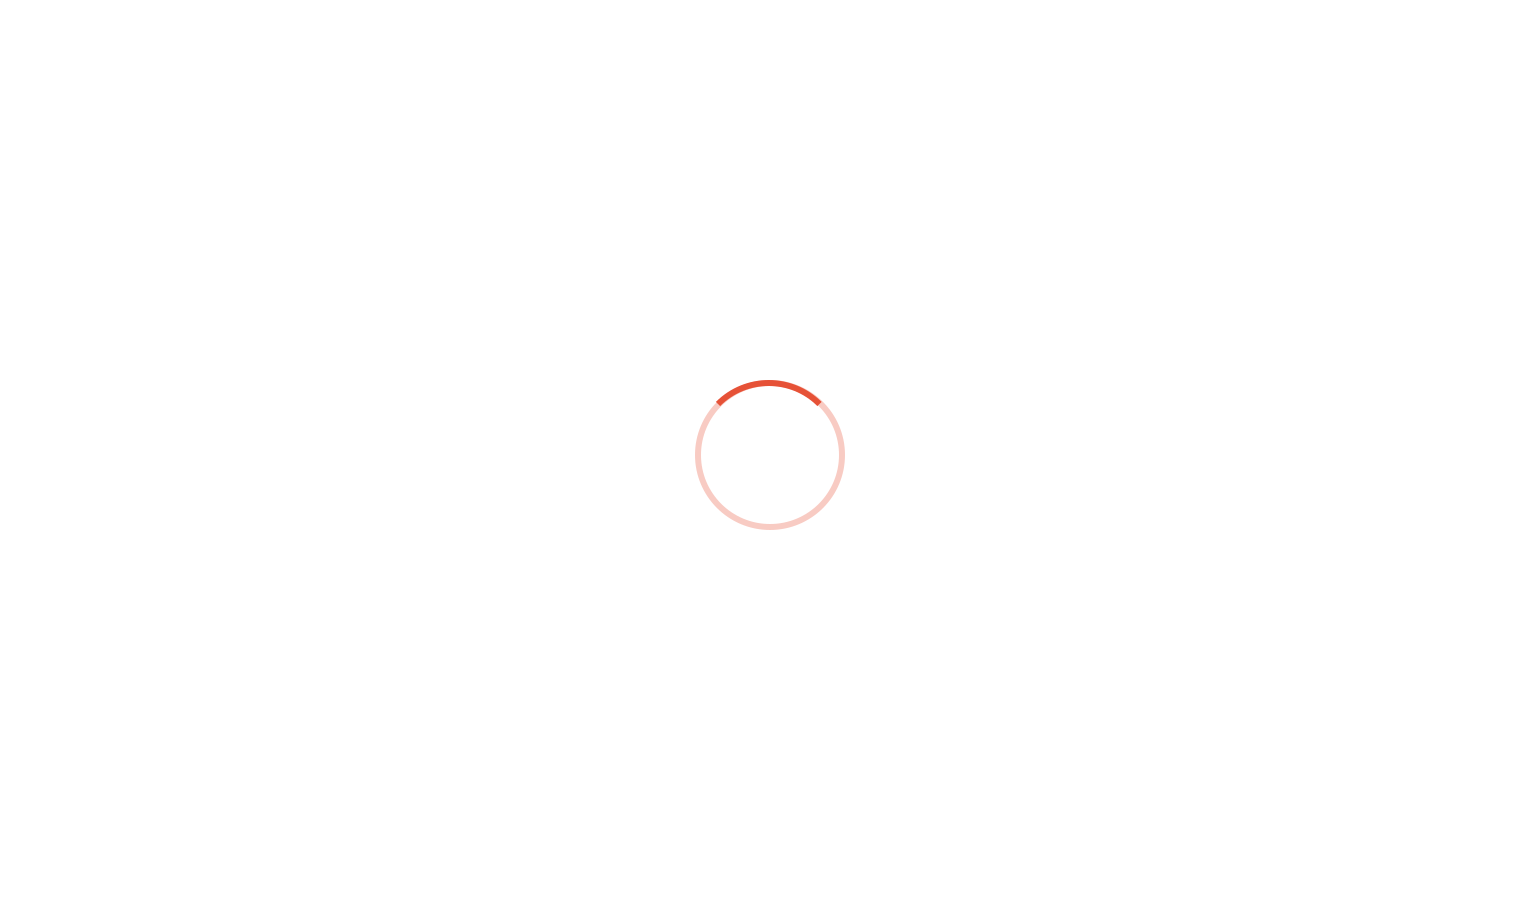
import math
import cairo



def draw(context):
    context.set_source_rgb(1, 1, 1)
    context.paint()
    context.new_path()
    context.move_to(718, 404)
    context.curve_to(746, 376, 791.5, 376, 819.5, 404)
    context.set_source_rgb(230 / 255, 82 / 255, 56 / 255)
    context.set_line_width(6)
    context.stroke()
    context.arc(770, 455, 72, 0, 2 * math.pi)
    context.set_source_rgba(230 / 255, 82 / 255, 56 / 255, 0.3)
    context.stroke()


surface = cairo.ImageSurface(cairo.Format.RGB24, 1536, 910)
context = cairo.Context(surface)
options = cairo.FontOptions()
options.set_hint_metrics(cairo.HintMetrics.OFF)
options.set_hint_style(cairo.HintStyle.NONE)
context.set_font_options(options)
context.set_miter_limit(4)
draw(context)
surface.write_to_png("out.png")
